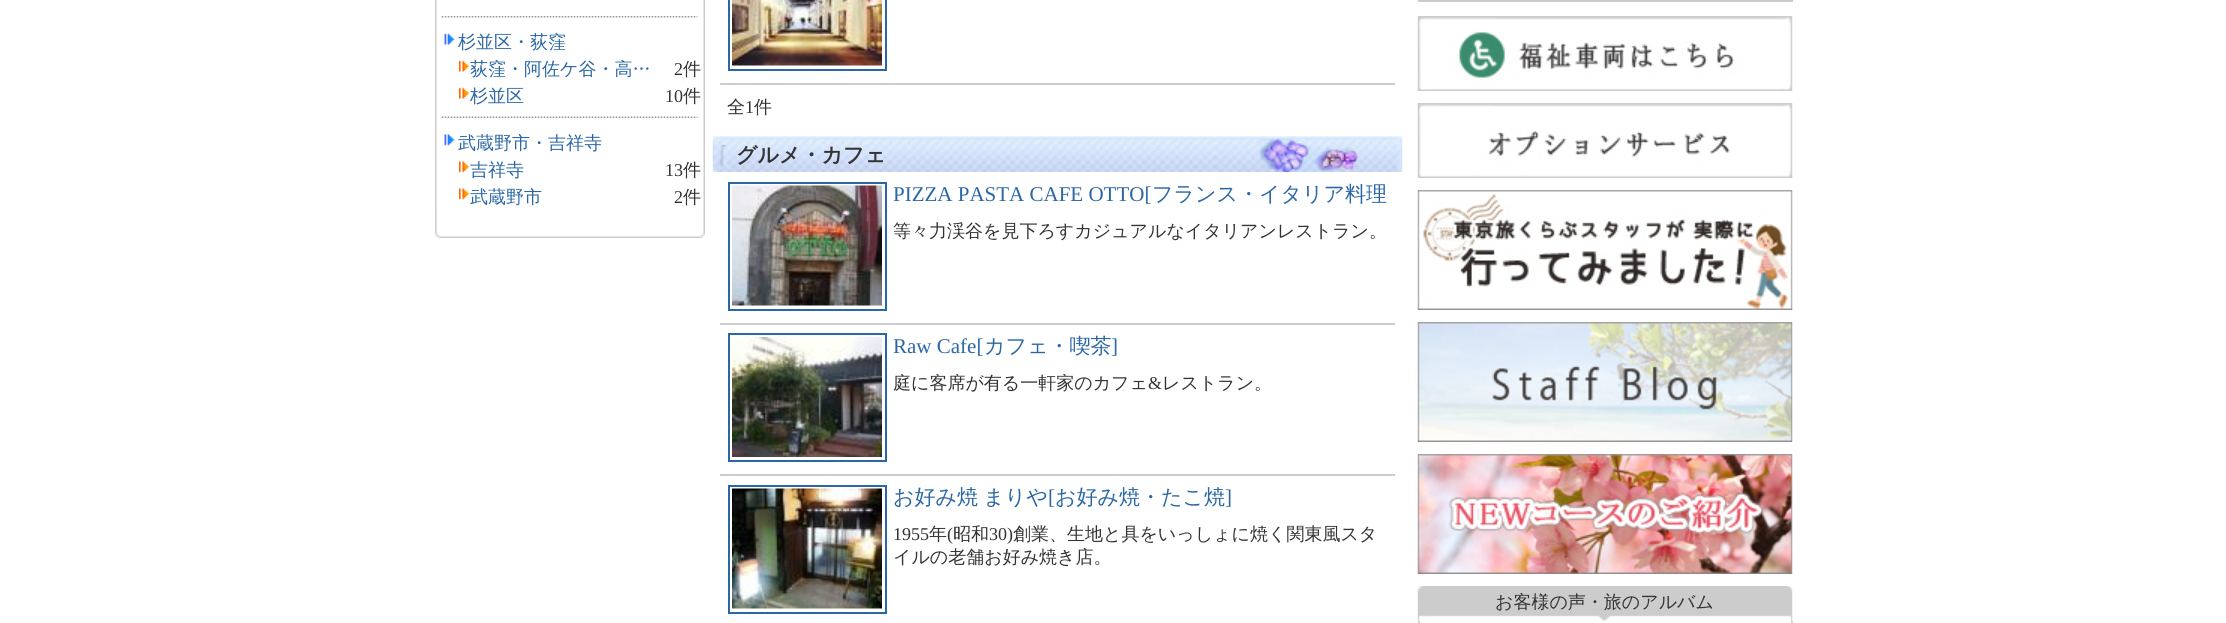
import math
import cairo



def draw_spaced(context, x, y, s, letter, word):
    context.move_to(x, y)
    for ch in s:
        context.show_text(ch)
        context.rel_move_to(letter + word * (ch == ' '), 0)


def draw_image(context, path, x, y, w, h):
    context.save()
    context.set_source_surface(cairo.ImageSurface.create_from_png(path), x, y)
    context.rectangle(x, y, w, h)
    context.fill()
    context.restore()


def draw(context):
    context.set_source_rgb(1, 1, 1)
    context.paint()
    draw_image(context, "images/1.png", 435, 0, 270, 208)
    draw_image(context, "images/2.png", 441, 16, 257, 2)
    draw_image(context, "images/3.png", 444, 33, 11, 12)
    draw_image(context, "images/4.png", 459, 60, 11, 12)
    draw_image(context, "images/4.png", 459, 87, 11, 12)
    draw_image(context, "images/5.png", 441, 116, 257, 2)
    draw_image(context, "images/6.png", 444, 134, 11, 12)
    draw_image(context, "images/7.png", 459, 161, 11, 12)
    draw_image(context, "images/7.png", 459, 188, 11, 12)
    draw_image(context, "images/8.png", 435, 208, 270, 30)
    context.set_source_rgb(204 / 255, 204 / 255, 204 / 255)
    context.rectangle(720, 83, 675, 2)
    context.fill()
    context.rectangle(729, -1, 157, 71)
    context.set_source_rgb(44 / 255, 103 / 255, 165 / 255)
    context.stroke()
    draw_image(context, "images/9.png", 732, 0, 150, 66)
    draw_image(context, "images/10.png", 712, 136, 691, 36)
    context.set_source_rgb(204 / 255, 204 / 255, 204 / 255)
    context.rectangle(720, 323, 675, 2)
    context.fill()
    context.rectangle(729, 183, 157, 127)
    context.set_source_rgb(44 / 255, 103 / 255, 165 / 255)
    context.stroke()
    draw_image(context, "images/11.png", 732, 185, 150, 121)
    context.set_source_rgb(204 / 255, 204 / 255, 204 / 255)
    context.rectangle(720, 474, 675, 2)
    context.fill()
    context.rectangle(729, 334, 157, 127)
    context.set_source_rgb(44 / 255, 103 / 255, 165 / 255)
    context.stroke()
    draw_image(context, "images/12.png", 732, 337, 150, 120)
    context.rectangle(729, 486, 157, 127)
    context.stroke()
    draw_image(context, "images/13.png", 732, 488, 150, 121)
    context.set_source_rgb(204 / 255, 204 / 255, 204 / 255)
    context.rectangle(1418, 0, 375, 2)
    context.fill()
    draw_image(context, "images/14.png", 1417, 16, 376, 75)
    draw_image(context, "images/15.png", 1417, 103, 376, 75)
    draw_image(context, "images/16.png", 1417, 190, 376, 120)
    draw_image(context, "images/17.png", 1417, 322, 376, 120)
    draw_image(context, "images/18.png", 1417, 454, 376, 120)
    draw_image(context, "images/19.png", 1417, 586, 376, 35)
    context.rectangle(1791, 621, 2, 2)
    context.fill()
    context.rectangle(1418, 621, 2, 2)
    context.fill()
    context.select_font_face("WenQuanYi Zen Hei Medium")
    context.set_font_size(18)
    context.set_source_rgb(44 / 255, 103 / 255, 165 / 255)
    context.move_to(458, 48)
    context.show_text("杉並区・荻窪")
    context.move_to(470, 75)
    context.show_text("荻窪・阿佐ケ谷・高…")
    context.select_font_face("Liberation Serif")
    context.set_source_rgb(51 / 255, 51 / 255, 51 / 255)
    context.move_to(674, 75)
    context.show_text("2")
    context.select_font_face("WenQuanYi Zen Hei Medium")
    context.move_to(683, 75)
    context.show_text("件")
    context.set_source_rgb(44 / 255, 103 / 255, 165 / 255)
    context.move_to(470, 102)
    context.show_text("杉並区")
    context.select_font_face("Liberation Serif")
    context.set_source_rgb(51 / 255, 51 / 255, 51 / 255)
    context.move_to(665, 102)
    context.show_text("10")
    context.select_font_face("WenQuanYi Zen Hei Medium")
    context.move_to(683, 102)
    context.show_text("件")
    context.set_source_rgb(44 / 255, 103 / 255, 165 / 255)
    context.move_to(458, 149)
    context.show_text("武蔵野市・吉祥寺")
    context.move_to(470, 176)
    context.show_text("吉祥寺")
    context.select_font_face("Liberation Serif")
    context.set_source_rgb(51 / 255, 51 / 255, 51 / 255)
    context.move_to(665, 176)
    context.show_text("13")
    context.select_font_face("WenQuanYi Zen Hei Medium")
    context.move_to(683, 176)
    context.show_text("件")
    context.set_source_rgb(44 / 255, 103 / 255, 165 / 255)
    context.move_to(470, 203)
    context.show_text("武蔵野市")
    context.select_font_face("Liberation Serif")
    context.set_source_rgb(51 / 255, 51 / 255, 51 / 255)
    context.move_to(674, 203)
    context.show_text("2")
    context.select_font_face("WenQuanYi Zen Hei Medium")
    context.move_to(683, 203)
    context.show_text("件")
    context.move_to(727, 113)
    context.show_text("全")
    context.select_font_face("Liberation Serif")
    context.move_to(745, 113)
    context.show_text("1")
    context.select_font_face("WenQuanYi Zen Hei Medium")
    context.move_to(754, 113)
    context.show_text("件")
    context.select_font_face("WenQuanYi Zen Hei", cairo.FontSlant.NORMAL, cairo.FontWeight.BOLD)
    context.set_font_size(21)
    context.move_to(736, 162)
    context.show_text("グルメ・カフェ")
    context.select_font_face("Liberation Serif")
    context.set_source_rgb(44 / 255, 103 / 255, 165 / 255)
    context.move_to(893, 201)
    context.show_text("PIZZA PASTA CAFE OTTO[")
    context.select_font_face("WenQuanYi Zen Hei Medium")
    context.move_to(1152, 201)
    context.show_text("フランス・イタリア料理")
    context.set_font_size(18)
    context.set_source_rgb(51 / 255, 51 / 255, 51 / 255)
    context.move_to(893, 237)
    context.show_text("等々力渓谷を見下ろすカジュアルなイタリアンレストラン。")
    context.select_font_face("Liberation Serif")
    context.set_font_size(21)
    context.set_source_rgb(44 / 255, 103 / 255, 165 / 255)
    context.move_to(893, 353)
    context.show_text("Raw Cafe[")
    context.select_font_face("WenQuanYi Zen Hei Medium")
    context.move_to(984, 353)
    context.show_text("カフェ・喫茶")
    context.select_font_face("Liberation Serif")
    context.move_to(1111, 353)
    context.show_text("]")
    context.select_font_face("WenQuanYi Zen Hei Medium")
    context.set_font_size(18)
    context.set_source_rgb(51 / 255, 51 / 255, 51 / 255)
    context.move_to(893, 389)
    context.show_text("庭に客席が有る一軒家のカフェ")
    context.select_font_face("Liberation Serif")
    context.move_to(1148, 389)
    context.show_text("&")
    context.select_font_face("WenQuanYi Zen Hei Medium")
    context.move_to(1162, 389)
    context.show_text("レストラン。")
    context.set_font_size(21)
    context.set_source_rgb(44 / 255, 103 / 255, 165 / 255)
    draw_spaced(context, 893, 504, "お好み焼 まりや", 0, -1)
    context.select_font_face("Liberation Serif")
    context.move_to(1048, 504)
    context.show_text("[")
    context.select_font_face("WenQuanYi Zen Hei Medium")
    context.move_to(1055, 504)
    context.show_text("お好み焼・たこ焼")
    context.select_font_face("Liberation Serif")
    context.move_to(1225, 504)
    context.show_text("]")
    context.set_font_size(18)
    context.set_source_rgb(51 / 255, 51 / 255, 51 / 255)
    context.move_to(893, 540)
    context.show_text("1955")
    context.select_font_face("WenQuanYi Zen Hei Medium")
    context.move_to(929, 540)
    context.show_text("年")
    context.select_font_face("Liberation Serif")
    context.move_to(947, 540)
    context.show_text("(")
    context.select_font_face("WenQuanYi Zen Hei Medium")
    context.move_to(953, 540)
    context.show_text("昭和")
    context.select_font_face("Liberation Serif")
    context.move_to(989, 540)
    context.show_text("30)")
    context.select_font_face("WenQuanYi Zen Hei Medium")
    context.move_to(1013, 540)
    context.show_text("創業、生地と具をいっしょに焼く関東風スタ")
    context.move_to(893, 563)
    context.show_text("イルの老舗お好み焼き店。")
    context.move_to(1495, 608)
    context.show_text("お客様の声・旅のアルバム")


surface = cairo.ImageSurface(cairo.Format.RGB24, 2226, 623)
context = cairo.Context(surface)
options = cairo.FontOptions()
options.set_hint_metrics(cairo.HintMetrics.OFF)
options.set_hint_style(cairo.HintStyle.NONE)
context.set_font_options(options)
context.set_miter_limit(4)
draw(context)
surface.write_to_png("out.png")
